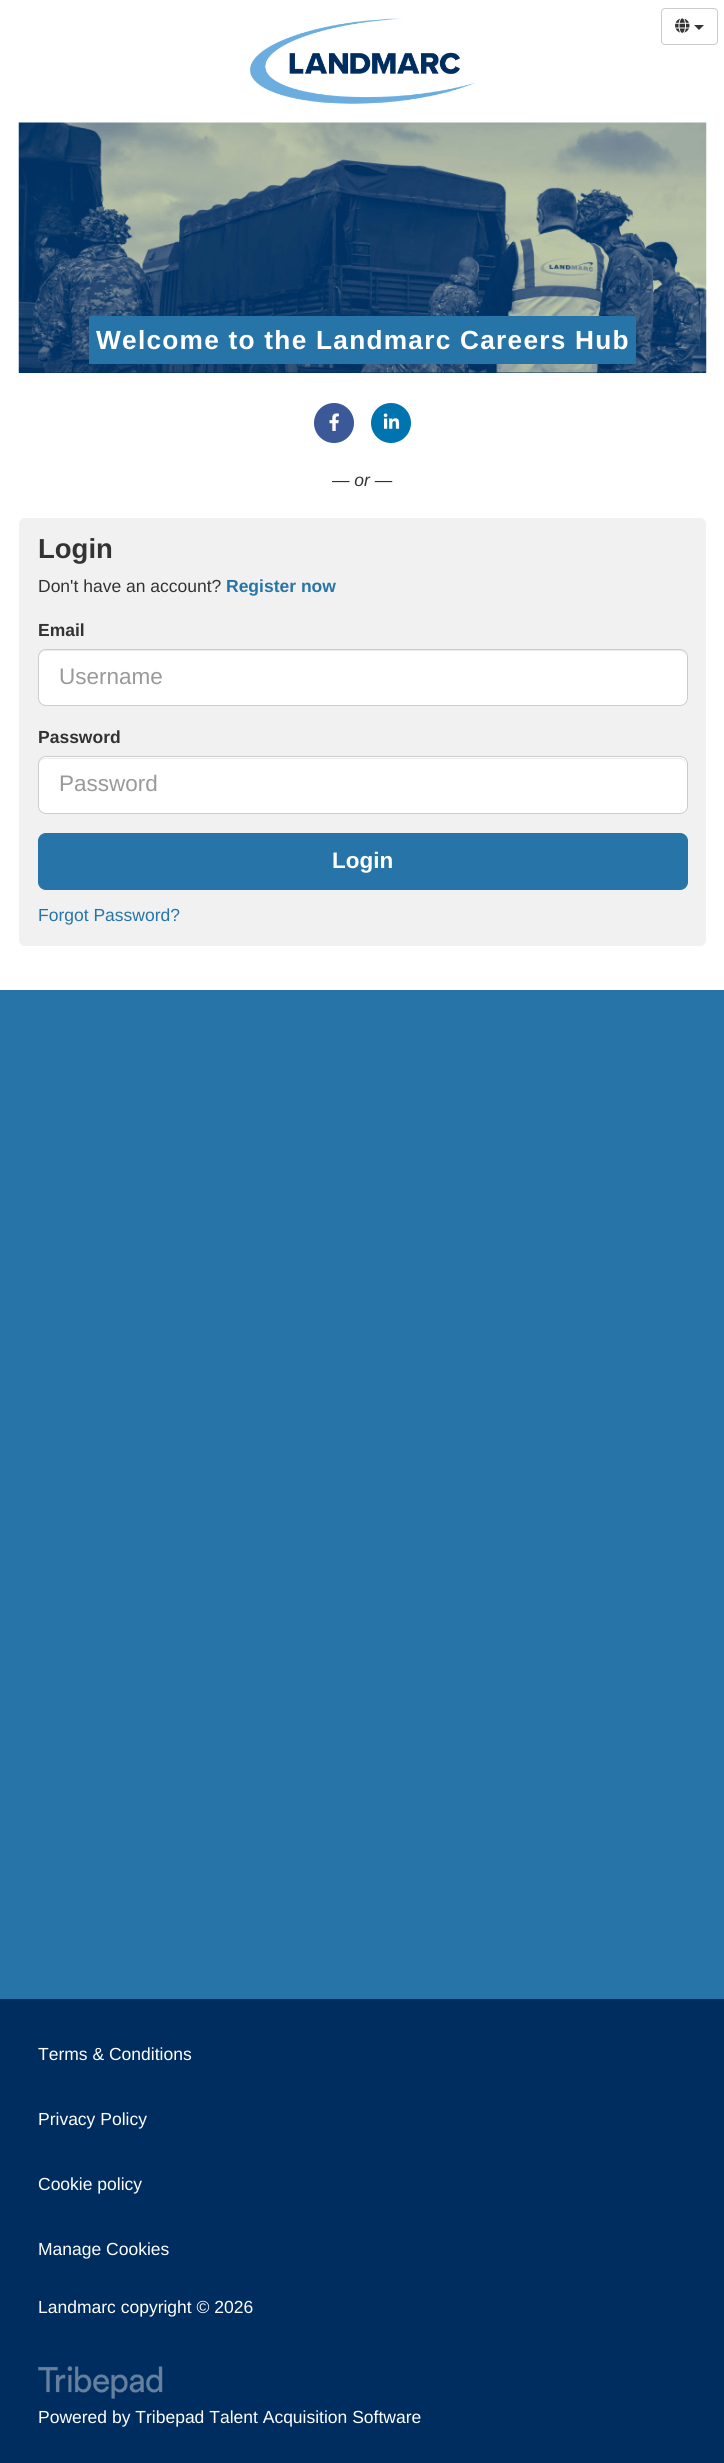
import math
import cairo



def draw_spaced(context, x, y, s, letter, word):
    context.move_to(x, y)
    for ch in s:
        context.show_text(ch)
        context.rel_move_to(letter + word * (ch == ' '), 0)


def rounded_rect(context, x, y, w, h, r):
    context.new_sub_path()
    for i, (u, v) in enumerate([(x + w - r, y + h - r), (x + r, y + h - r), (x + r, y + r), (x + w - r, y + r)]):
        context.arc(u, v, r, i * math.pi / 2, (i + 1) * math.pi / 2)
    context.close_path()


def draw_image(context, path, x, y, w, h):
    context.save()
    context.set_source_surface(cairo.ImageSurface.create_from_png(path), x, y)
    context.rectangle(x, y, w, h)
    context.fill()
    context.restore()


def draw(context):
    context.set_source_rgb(39 / 255, 117 / 255, 168 / 255)
    context.paint()
    context.set_source_rgb(1, 1, 1)
    context.rectangle(0, 0, 724, 990)
    context.fill()
    draw_image(context, "images/1.png", 250, 18, 225, 86)
    rounded_rect(context, 661.5, 8.5, 56, 36, 3.5)
    context.set_source_rgb(204 / 255, 204 / 255, 204 / 255)
    context.set_line_width(1)
    context.stroke()
    draw_image(context, "images/2.png", 675, 18, 15, 15)
    context.set_source_rgb(51 / 255, 51 / 255, 51 / 255)
    context.new_path()
    context.move_to(694, 25)
    context.line_to(704, 25)
    context.line_to(699, 30)
    context.close_path()
    context.fill()
    context.set_source_rgb(0, 45 / 255, 95 / 255)
    context.rectangle(19, 372, 687, 1)
    context.fill()
    draw_image(context, "images/3.png", 18, 122, 689, 251)
    context.set_source_rgb(39 / 255, 117 / 255, 168 / 255)
    context.rectangle(89, 316, 547, 48)
    context.fill()
    context.set_source_rgb(59 / 255, 89 / 255, 152 / 255)
    context.arc(334, 423, 20, 0, 2 * math.pi)
    context.fill()
    draw_image(context, "images/4.png", 329, 413, 10, 18)
    context.set_source_rgb(0, 115 / 255, 177 / 255)
    context.arc(391, 423, 20, 0, 2 * math.pi)
    context.fill()
    draw_image(context, "images/5.png", 383, 413, 17, 16)
    context.set_source_rgb(241 / 255, 241 / 255, 241 / 255)
    rounded_rect(context, 19, 518, 687, 428, 6)
    context.fill()
    context.set_source_rgb(1, 1, 1)
    rounded_rect(context, 38, 649, 650, 57, 8)
    context.fill()
    context.set_source_rgb(236 / 255, 236 / 255, 236 / 255)
    context.new_path()
    context.move_to(45, 651)
    context.line_to(680, 651)
    context.curve_to(683, 651, 686, 654, 686, 658)
    context.curve_to(686, 654, 685, 650, 680, 650)
    context.line_to(45, 650)
    context.curve_to(40, 650, 39, 654, 39, 658)
    context.curve_to(39, 654, 42, 651, 45, 651)
    context.close_path()
    context.fill()
    rounded_rect(context, 38.5, 649.5, 649, 56, 7.5)
    context.set_source_rgb(204 / 255, 204 / 255, 204 / 255)
    context.stroke()
    context.set_source_rgb(1, 1, 1)
    rounded_rect(context, 38, 756, 650, 58, 8)
    context.fill()
    context.set_source_rgb(236 / 255, 236 / 255, 236 / 255)
    context.new_path()
    context.move_to(45, 759)
    context.line_to(680, 759)
    context.curve_to(683, 759, 686, 762, 686, 765)
    context.curve_to(686, 761, 684, 758, 680, 758)
    context.line_to(45, 758)
    context.curve_to(41, 758, 39, 761, 39, 765)
    context.curve_to(39, 762, 42, 759, 45, 759)
    context.close_path()
    context.fill()
    rounded_rect(context, 38.5, 756.5, 649, 57, 7.5)
    context.set_source_rgb(204 / 255, 204 / 255, 204 / 255)
    context.stroke()
    context.set_source_rgb(39 / 255, 117 / 255, 168 / 255)
    rounded_rect(context, 38.5, 833.5, 649, 56, 7.5)
    context.fill_preserve()
    context.stroke()
    context.set_source_rgb(0, 45 / 255, 95 / 255)
    context.rectangle(0, 1999, 724, 464)
    context.fill()
    draw_image(context, "images/6.png", 38, 2366, 125, 33)
    context.select_font_face("Liberation Sans", cairo.FontSlant.NORMAL, cairo.FontWeight.BOLD)
    context.set_font_size(26.25)
    context.set_source_rgb(1, 1, 1)
    draw_spaced(context, 96, 349, "Welcome to the Landmarc Careers Hub", 1.25, 0)
    context.select_font_face("Liberation Sans", cairo.FontSlant.ITALIC)
    context.set_font_size(17.5)
    context.set_source_rgb(51 / 255, 51 / 255, 51 / 255)
    context.move_to(332, 486)
    context.show_text("— or —")
    context.select_font_face("Liberation Sans", cairo.FontSlant.NORMAL, cairo.FontWeight.BOLD)
    context.set_font_size(27.5)
    context.move_to(38, 558)
    context.show_text("Login")
    context.select_font_face("Liberation Sans")
    context.set_font_size(17.5)
    context.move_to(38, 592)
    context.show_text("Don't have an account?")
    context.select_font_face("Liberation Sans", cairo.FontSlant.NORMAL, cairo.FontWeight.BOLD)
    context.set_source_rgb(39 / 255, 117 / 255, 168 / 255)
    context.move_to(226, 592)
    context.show_text("Register now")
    context.set_source_rgb(51 / 255, 51 / 255, 51 / 255)
    context.move_to(38, 636)
    context.show_text("Email")
    context.select_font_face("Liberation Sans")
    context.set_font_size(22.5)
    context.set_source_rgb(153 / 255, 153 / 255, 153 / 255)
    context.move_to(59, 684)
    context.show_text("Username")
    context.select_font_face("Liberation Sans", cairo.FontSlant.NORMAL, cairo.FontWeight.BOLD)
    context.set_font_size(17.5)
    context.set_source_rgb(51 / 255, 51 / 255, 51 / 255)
    context.move_to(38, 743)
    context.show_text("Password")
    context.select_font_face("Liberation Sans")
    context.set_font_size(22.5)
    context.set_source_rgb(153 / 255, 153 / 255, 153 / 255)
    context.move_to(59, 791)
    context.show_text("Password")
    context.select_font_face("Liberation Sans", cairo.FontSlant.NORMAL, cairo.FontWeight.BOLD)
    context.set_source_rgb(1, 1, 1)
    context.move_to(332, 868)
    context.show_text("Login")
    context.select_font_face("Liberation Sans")
    context.set_font_size(17.5)
    context.set_source_rgb(39 / 255, 117 / 255, 168 / 255)
    context.move_to(38, 921)
    context.show_text("Forgot Password?")
    context.set_source_rgb(1, 1, 1)
    context.move_to(38, 2060)
    context.show_text("Terms & Conditions")
    context.move_to(38, 2125)
    context.show_text("Privacy Policy")
    context.move_to(38, 2190)
    context.show_text("Cookie policy")
    context.move_to(38, 2255)
    context.show_text("Manage Cookies")
    context.move_to(38, 2313)
    context.show_text("Landmarc copyright © 2026")
    context.move_to(38, 2423)
    context.show_text("Powered by Tribepad Talent Acquisition Software")


surface = cairo.ImageSurface(cairo.Format.RGB24, 724, 2463)
context = cairo.Context(surface)
options = cairo.FontOptions()
options.set_hint_metrics(cairo.HintMetrics.OFF)
options.set_hint_style(cairo.HintStyle.NONE)
context.set_font_options(options)
context.set_miter_limit(4)
draw(context)
surface.write_to_png("out.png")
